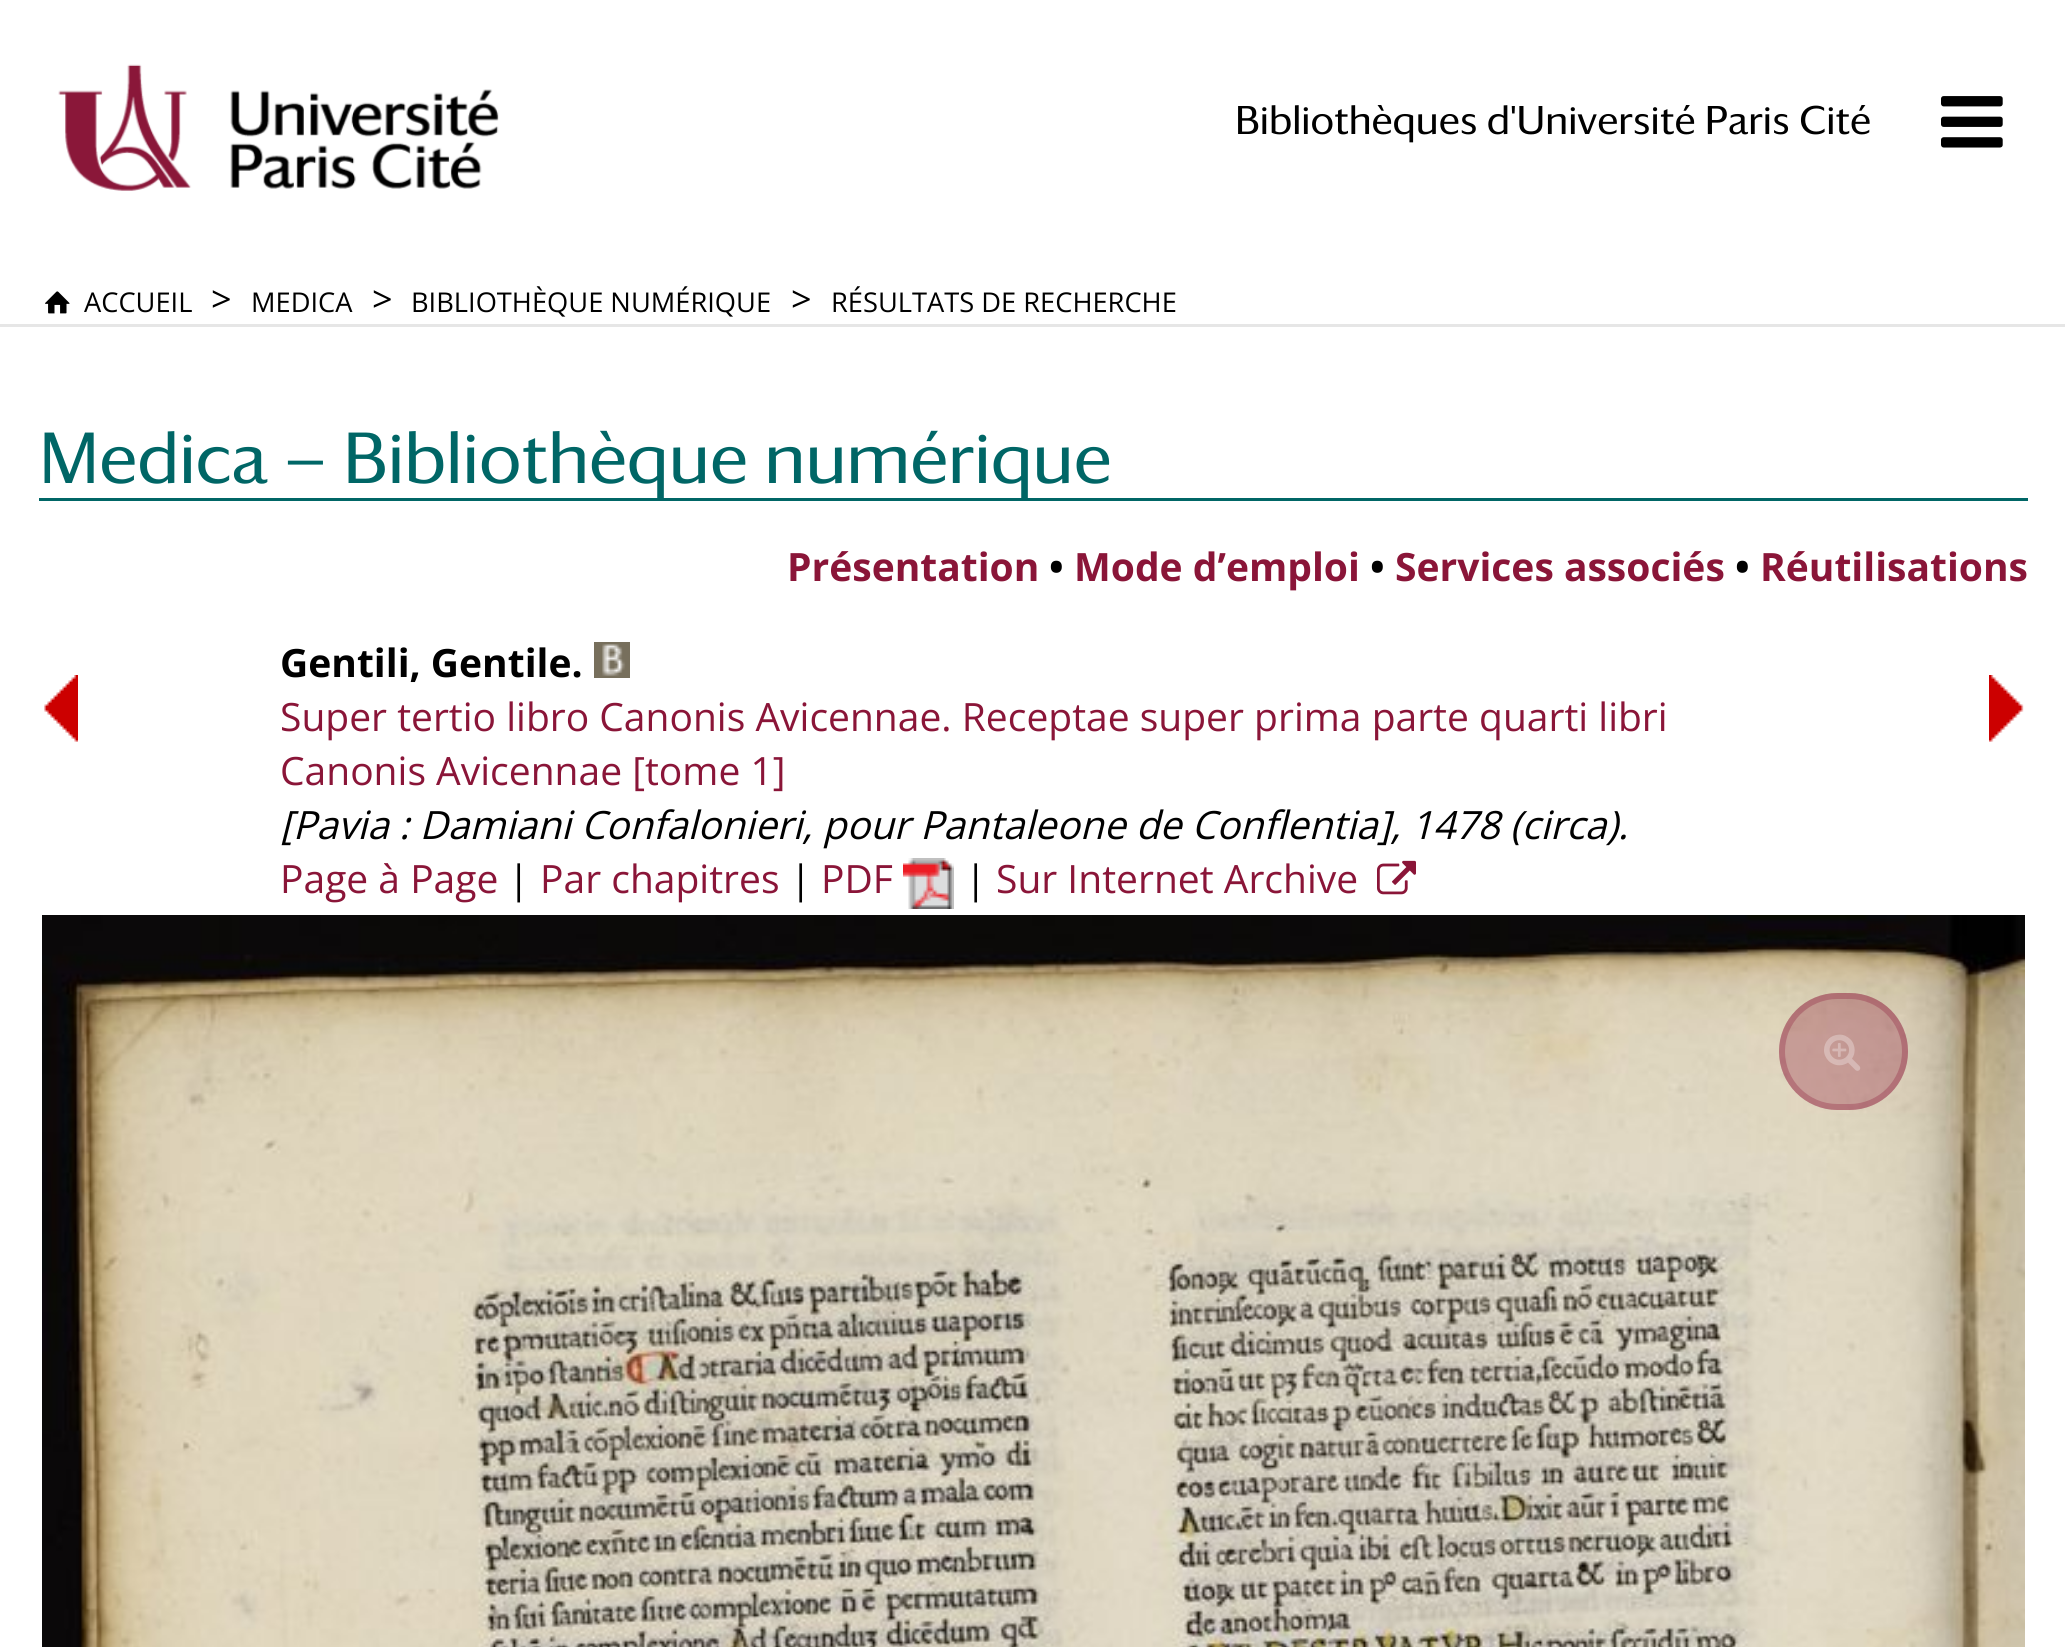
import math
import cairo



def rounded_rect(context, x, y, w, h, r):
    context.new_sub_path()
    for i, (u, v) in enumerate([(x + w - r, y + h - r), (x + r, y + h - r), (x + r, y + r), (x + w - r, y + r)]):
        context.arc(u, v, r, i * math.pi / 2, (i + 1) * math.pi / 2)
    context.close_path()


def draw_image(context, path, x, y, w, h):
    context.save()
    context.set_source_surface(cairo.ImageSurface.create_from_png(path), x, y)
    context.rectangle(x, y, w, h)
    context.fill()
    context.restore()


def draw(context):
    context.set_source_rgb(1, 1, 1)
    context.paint()
    context.set_source_rgb(230 / 255, 230 / 255, 230 / 255)
    context.rectangle(0, 324, 2065, 3)
    context.fill()
    draw_image(context, "images/1.png", 58, 64, 441, 127)
    draw_image(context, "images/2.png", 1941, 96, 62, 52)
    draw_image(context, "images/3.png", 45, 291, 25, 23)
    context.set_source_rgb(0, 102 / 255, 102 / 255)
    context.rectangle(39, 498, 1989, 3)
    context.fill()
    draw_image(context, "images/4.png", 44, 675, 34, 67)
    draw_image(context, "images/5.png", 594, 642, 36, 36)
    draw_image(context, "images/6.png", 903, 858, 51, 51)
    draw_image(context, "images/7.png", 1377, 860, 39, 35)
    draw_image(context, "images/8.png", 1989, 675, 35, 67)
    draw_image(context, "images/9.png", 42, 915, 1983, 732)
    context.set_source_rgba(138 / 255, 21 / 255, 56 / 255, 0.3)
    rounded_rect(context, 1779, 993, 129, 117, 58.5)
    context.fill()
    rounded_rect(context, 1782, 996, 123, 111, 55.5)
    context.set_line_width(6)
    context.stroke()
    draw_image(context, "images/10.png", 1824, 1034, 37, 37)
    context.select_font_face("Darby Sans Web")
    context.set_font_size(39)
    context.set_source_rgb(0, 0, 0)
    context.move_to(1235, 134)
    context.show_text("Bibliothèques d'Université Paris Cité")
    context.select_font_face("Open Sans")
    context.set_font_size(27.25)
    context.move_to(84, 312)
    context.show_text("ACCUEIL")
    context.set_font_size(36)
    context.move_to(211, 312)
    context.show_text(">")
    context.set_font_size(27.25)
    context.move_to(251, 312)
    context.show_text("MEDICA")
    context.set_font_size(36)
    context.move_to(372, 312)
    context.show_text(">")
    context.set_font_size(27.25)
    context.move_to(411, 312)
    context.show_text("BIBLIOTHÈQUE NUMÉRIQUE")
    context.set_font_size(36)
    context.move_to(791, 312)
    context.show_text(">")
    context.set_font_size(27.25)
    context.move_to(831, 312)
    context.show_text("RÉSULTATS DE RECHERCHE")
    context.select_font_face("Darby Sans Web")
    context.set_font_size(70.25)
    context.set_source_rgb(0, 102 / 255, 102 / 255)
    context.move_to(39, 483)
    context.show_text("Medica — Bibliothèque numérique")
    context.select_font_face("Open Sans", cairo.FontSlant.NORMAL, cairo.FontWeight.BOLD)
    context.set_font_size(39)
    context.set_source_rgb(138 / 255, 21 / 255, 56 / 255)
    context.move_to(787, 581)
    context.show_text("Présentation")
    context.set_source_rgb(0, 0, 0)
    context.move_to(1049, 581)
    context.show_text("•")
    context.set_source_rgb(138 / 255, 21 / 255, 56 / 255)
    context.move_to(1074, 581)
    context.show_text("Mode d’emploi")
    context.set_source_rgb(0, 0, 0)
    context.move_to(1370, 581)
    context.show_text("•")
    context.set_source_rgb(138 / 255, 21 / 255, 56 / 255)
    context.move_to(1395, 581)
    context.show_text("Services associés")
    context.set_source_rgb(0, 0, 0)
    context.move_to(1735, 581)
    context.show_text("•")
    context.set_source_rgb(138 / 255, 21 / 255, 56 / 255)
    context.move_to(1760, 581)
    context.show_text("Réutilisations")
    context.set_source_rgb(0, 0, 0)
    context.move_to(280, 677)
    context.show_text("Gentili, Gentile.")
    context.select_font_face("Open Sans")
    context.set_source_rgb(138 / 255, 21 / 255, 56 / 255)
    context.move_to(280, 731)
    context.show_text("Super tertio libro Canonis Avicennae. Receptae super prima parte quarti libri")
    context.move_to(280, 785)
    context.show_text("Canonis Avicennae [tome 1]")
    context.select_font_face("Open Sans", cairo.FontSlant.ITALIC)
    context.set_source_rgb(0, 0, 0)
    context.move_to(280, 839)
    context.show_text("[Pavia : Damiani Confalonieri, pour Pantaleone de Conflentia], 1478 (circa).")
    context.select_font_face("Open Sans")
    context.set_source_rgb(138 / 255, 21 / 255, 56 / 255)
    context.move_to(280, 893)
    context.show_text("Page à Page")
    context.set_source_rgb(0, 0, 0)
    context.move_to(508, 893)
    context.show_text("|")
    context.set_source_rgb(138 / 255, 21 / 255, 56 / 255)
    context.move_to(540, 893)
    context.show_text("Par chapitres")
    context.set_source_rgb(0, 0, 0)
    context.move_to(790, 893)
    context.show_text("|")
    context.set_source_rgb(138 / 255, 21 / 255, 56 / 255)
    context.move_to(821, 893)
    context.show_text("PDF")
    context.set_source_rgb(0, 0, 0)
    context.move_to(965, 893)
    context.show_text("|")
    context.set_source_rgb(138 / 255, 21 / 255, 56 / 255)
    context.move_to(996, 893)
    context.show_text("Sur Internet Archive")


surface = cairo.ImageSurface(cairo.Format.RGB24, 2065, 1647)
context = cairo.Context(surface)
options = cairo.FontOptions()
options.set_hint_metrics(cairo.HintMetrics.OFF)
options.set_hint_style(cairo.HintStyle.NONE)
context.set_font_options(options)
context.set_miter_limit(4)
draw(context)
surface.write_to_png("out.png")
